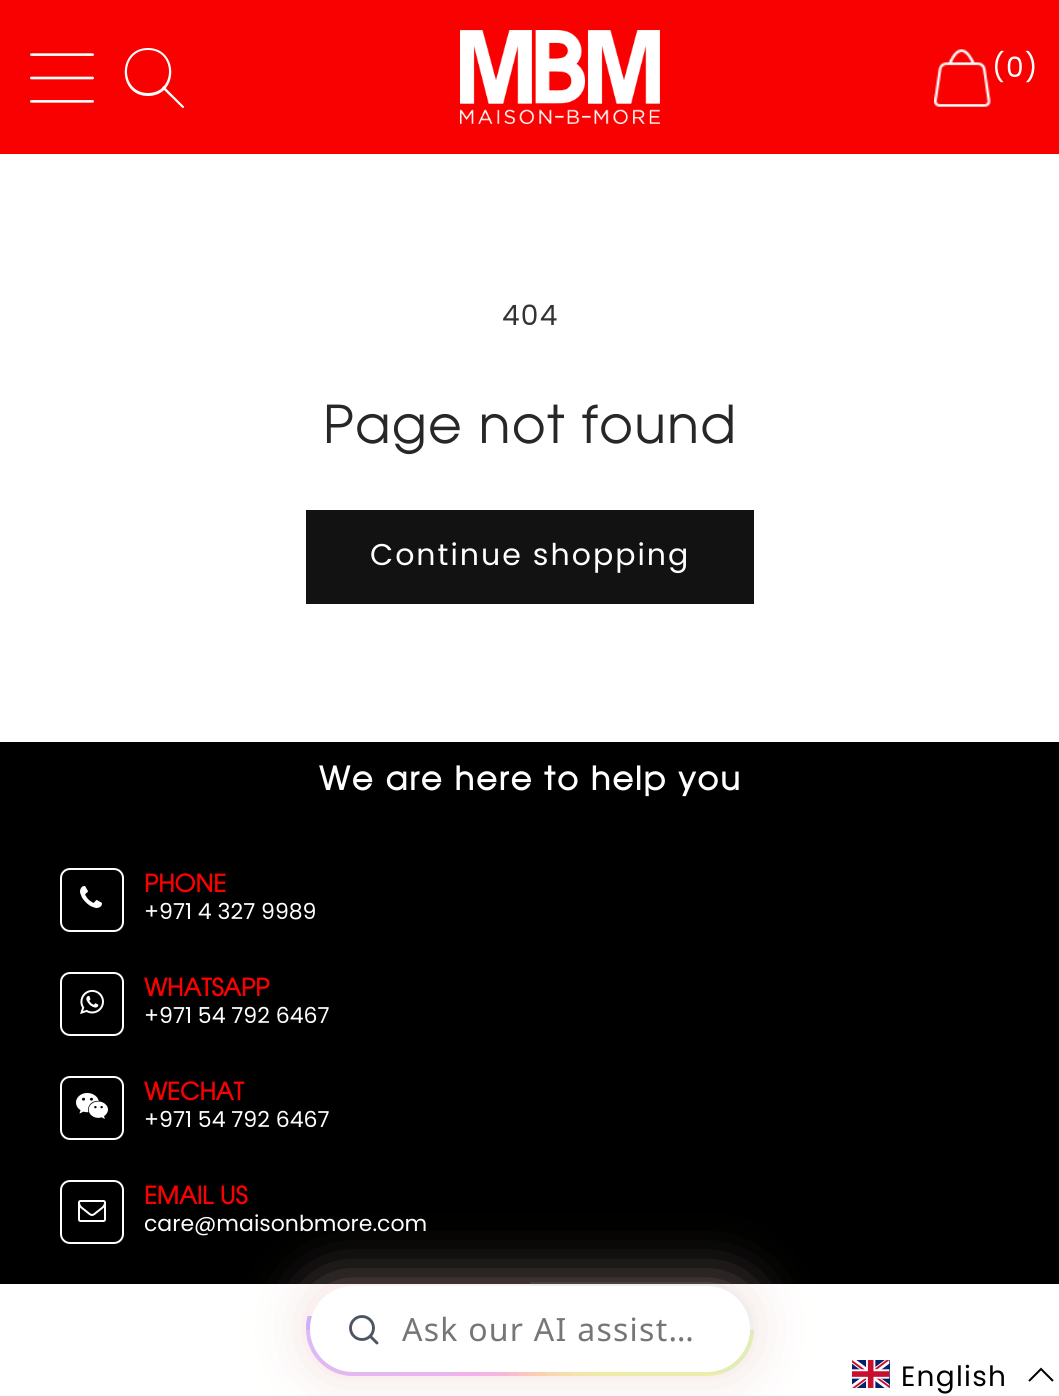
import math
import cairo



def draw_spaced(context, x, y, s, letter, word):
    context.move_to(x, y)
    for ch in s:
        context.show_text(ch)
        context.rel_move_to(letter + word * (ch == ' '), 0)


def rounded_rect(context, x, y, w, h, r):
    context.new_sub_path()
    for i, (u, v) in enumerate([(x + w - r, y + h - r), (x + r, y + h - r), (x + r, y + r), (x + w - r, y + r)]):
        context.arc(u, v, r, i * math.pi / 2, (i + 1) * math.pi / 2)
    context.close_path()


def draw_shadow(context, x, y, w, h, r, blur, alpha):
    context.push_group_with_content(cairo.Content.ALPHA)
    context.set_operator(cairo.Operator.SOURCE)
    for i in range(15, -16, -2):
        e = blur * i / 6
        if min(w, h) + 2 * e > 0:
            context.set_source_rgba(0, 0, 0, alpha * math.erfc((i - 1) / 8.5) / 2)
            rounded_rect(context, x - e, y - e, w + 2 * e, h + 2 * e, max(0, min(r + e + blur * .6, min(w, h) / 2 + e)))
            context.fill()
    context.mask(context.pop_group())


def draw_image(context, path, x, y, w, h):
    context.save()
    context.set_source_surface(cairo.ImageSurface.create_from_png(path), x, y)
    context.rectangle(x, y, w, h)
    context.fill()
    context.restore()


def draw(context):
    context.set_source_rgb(1, 1, 1)
    context.paint()
    context.set_source_rgb(249 / 255, 1 / 255, 1 / 255)
    context.rectangle(0, 0, 1059, 154)
    context.fill()
    draw_image(context, "images/1.png", 30, 53, 64, 50)
    context.set_source_rgb(1, 1, 1)
    context.new_path()
    context.move_to(148, 96)
    context.curve_to(117, 96, 117, 48, 148, 48)
    context.curve_to(179, 48, 179, 96, 148, 96)
    context.close_path()
    context.move_to(148, 50)
    context.curve_to(120, 50, 120, 93, 148, 93)
    context.curve_to(176, 93, 176, 50, 148, 50)
    context.close_path()
    context.fill()
    context.new_path()
    context.move_to(183, 108)
    context.line_to(182, 107.5)
    context.line_to(162.5, 88.5)
    context.curve_to(162, 87.5, 163, 86, 164, 86.5)
    context.line_to(183.5, 106)
    context.curve_to(184.5, 106.5, 184, 108, 183, 108)
    context.close_path()
    context.fill()
    draw_image(context, "images/2.png", 460, 30, 200, 94)
    draw_image(context, "images/3.png", 934, 49, 57, 58)
    context.rectangle(307, 511, 446, 92)
    context.set_source_rgb(18 / 255, 18 / 255, 18 / 255)
    context.stroke()
    context.rectangle(308, 512, 444, 90)
    context.fill()
    context.set_source_rgb(0, 0, 0)
    context.rectangle(0, 742, 1059, 542)
    context.fill()
    rounded_rect(context, 61, 869, 62, 62, 9)
    context.set_source_rgb(1, 1, 1)
    context.stroke()
    draw_image(context, "images/4.png", 80, 886, 22, 22)
    rounded_rect(context, 61, 973, 62, 62, 9)
    context.stroke()
    draw_image(context, "images/5.png", 80, 989, 24, 25)
    rounded_rect(context, 61, 1077, 62, 62, 9)
    context.stroke()
    draw_image(context, "images/6.png", 76, 1093, 32, 26)
    rounded_rect(context, 61, 1181, 62, 62, 9)
    context.stroke()
    draw_image(context, "images/7.png", 78, 1200, 28, 22)
    context.set_source_rgb(230 / 255, 197 / 255, 191 / 255)
    draw_shadow(context, 306, 1282, 448, 94, 47, 28, 0.5)
    draw_image(context, "images/8.png", 306, 1282, 448, 94)
    draw_image(context, "images/9.png", 306, 1282, 448, 94)
    context.set_source_rgb(1, 1, 1)
    rounded_rect(context, 310, 1286, 440, 86, 43)
    context.fill()
    context.arc(362, 1328, 11.5, 0, 2 * math.pi)
    context.set_source_rgb(75 / 255, 85 / 255, 99 / 255)
    context.set_line_width(2.9)
    context.stroke()
    context.new_path()
    context.move_to(377, 1343)
    context.line_to(370.5, 1336.5)
    context.set_line_cap(cairo.LineCap.ROUND)
    context.set_line_join(cairo.LineJoin.ROUND)
    context.stroke()
    draw_image(context, "images/10.png", 852, 1360, 38, 28)
    context.new_path()
    context.move_to(1053, 1381)
    context.line_to(1041, 1369)
    context.line_to(1029, 1381)
    context.set_source_rgb(0, 0, 0)
    context.set_line_width(2)
    context.set_line_cap(cairo.LineCap.BUTT)
    context.set_line_join(cairo.LineJoin.MITER)
    context.stroke()
    context.select_font_face("Poppins")
    context.set_font_size(28)
    context.set_source_rgb(1, 1, 1)
    draw_spaced(context, 992, 77, "(0)", 1.25, 0)
    context.set_source_rgb(51 / 255, 51 / 255, 51 / 255)
    draw_spaced(context, 502, 325, "404", 1.25, 0)
    context.select_font_face("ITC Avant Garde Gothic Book")
    context.set_font_size(52)
    context.set_source_rgb(40 / 255, 39 / 255, 39 / 255)
    draw_spaced(context, 323, 443, "Page not found", 1.25, 0)
    context.select_font_face("Poppins")
    context.set_font_size(30)
    context.set_source_rgb(1, 1, 1)
    draw_spaced(context, 370, 565, "Continue shopping", 2, 0)
    context.select_font_face("ITC Avant Garde Gothic Book", cairo.FontSlant.NORMAL, cairo.FontWeight.BOLD)
    context.set_font_size(32)
    draw_spaced(context, 319, 790, "We are here to help you", 2, 0)
    context.set_font_size(24)
    context.set_source_rgb(249 / 255, 1 / 255, 1 / 255)
    context.move_to(144, 892)
    context.show_text("PHONE")
    context.select_font_face("Poppins")
    context.set_font_size(22)
    context.set_source_rgb(1, 1, 1)
    context.move_to(144, 919)
    context.show_text("+971 4 327 9989")
    context.select_font_face("ITC Avant Garde Gothic Book", cairo.FontSlant.NORMAL, cairo.FontWeight.BOLD)
    context.set_font_size(24)
    context.set_source_rgb(249 / 255, 1 / 255, 1 / 255)
    context.move_to(144, 996)
    context.show_text("WHATSAPP")
    context.select_font_face("Poppins")
    context.set_font_size(22)
    context.set_source_rgb(1, 1, 1)
    context.move_to(144, 1023)
    context.show_text("+971 54 792 6467")
    context.select_font_face("ITC Avant Garde Gothic Book", cairo.FontSlant.NORMAL, cairo.FontWeight.BOLD)
    context.set_font_size(24)
    context.set_source_rgb(249 / 255, 1 / 255, 1 / 255)
    context.move_to(144, 1100)
    context.show_text("WECHAT")
    context.select_font_face("Poppins")
    context.set_font_size(22)
    context.set_source_rgb(1, 1, 1)
    context.move_to(144, 1127)
    context.show_text("+971 54 792 6467")
    context.select_font_face("ITC Avant Garde Gothic Book", cairo.FontSlant.NORMAL, cairo.FontWeight.BOLD)
    context.set_font_size(24)
    context.set_source_rgb(249 / 255, 1 / 255, 1 / 255)
    context.move_to(144, 1204)
    context.show_text("EMAIL US")
    context.select_font_face("Poppins")
    context.set_font_size(22)
    context.set_source_rgb(1, 1, 1)
    context.move_to(144, 1231)
    context.show_text("care@maisonbmore.com")
    context.select_font_face("Noto Sans")
    context.set_font_size(32)
    context.set_source_rgb(118 / 255, 118 / 255, 118 / 255)
    draw_spaced(context, 402, 1341, "Ask our AI assist…", 1.25, 0)
    context.select_font_face("Poppins")
    context.set_font_size(28)
    context.set_source_rgb(0, 0, 0)
    draw_spaced(context, 901, 1386, "English", 1.25, 0)


surface = cairo.ImageSurface(cairo.Format.RGB24, 1059, 1396)
context = cairo.Context(surface)
options = cairo.FontOptions()
options.set_hint_metrics(cairo.HintMetrics.OFF)
options.set_hint_style(cairo.HintStyle.NONE)
context.set_font_options(options)
context.set_miter_limit(4)
draw(context)
surface.write_to_png("out.png")
